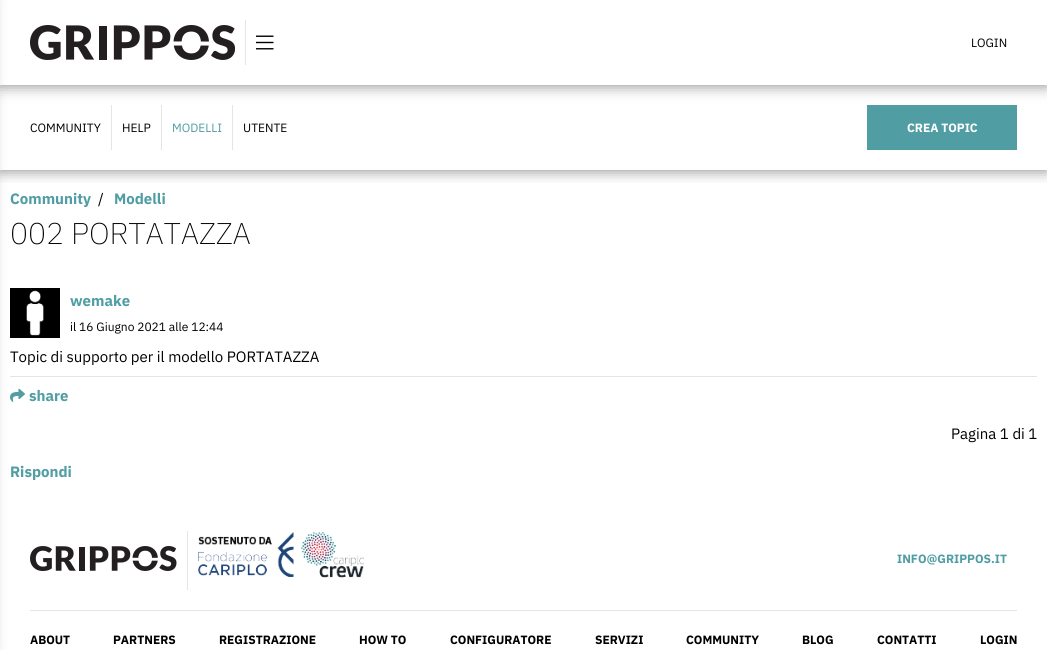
import math
import cairo



def rounded_rect(context, x, y, w, h, r):
    context.new_sub_path()
    for i, (u, v) in enumerate([(x + w - r, y + h - r), (x + r, y + h - r), (x + r, y + r), (x + w - r, y + r)]):
        context.arc(u, v, r, i * math.pi / 2, (i + 1) * math.pi / 2)
    context.close_path()


def draw_shadow(context, x, y, w, h, r, blur, alpha):
    context.push_group_with_content(cairo.Content.ALPHA)
    context.set_operator(cairo.Operator.SOURCE)
    for i in range(15, -16, -2):
        e = blur * i / 6
        if min(w, h) + 2 * e > 0:
            context.set_source_rgba(0, 0, 0, alpha * math.erfc((i - 1) / 8.5) / 2)
            rounded_rect(context, x - e, y - e, w + 2 * e, h + 2 * e, max(0, min(r + e + blur * .6, min(w, h) / 2 + e)))
            context.fill()
    context.mask(context.pop_group())


def draw_image(context, path, x, y, w, h):
    context.save()
    context.set_source_surface(cairo.ImageSurface.create_from_png(path), x, y)
    context.rectangle(x, y, w, h)
    context.fill()
    context.restore()


def draw(context):
    context.set_source_rgb(1, 1, 1)
    context.paint()
    context.save()
    context.rectangle(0, 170, 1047, 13)
    context.clip()
    context.set_source_rgb(0, 0, 0)
    draw_shadow(context, 0, 85, 1047, 85, 0, 7.5, 0.5)
    context.restore()
    context.set_source_rgb(229 / 255, 229 / 255, 229 / 255)
    context.rectangle(111, 105, 1, 45)
    context.fill()
    context.rectangle(161, 105, 1, 45)
    context.fill()
    context.rectangle(232, 105, 1, 45)
    context.fill()
    context.set_source_rgb(80 / 255, 157 / 255, 163 / 255)
    context.rectangle(867, 105, 150, 45)
    context.fill()
    context.set_source_rgb(0, 0, 0)
    draw_shadow(context, 0, 0, 1047, 85, 0, 7.5, 0.5)
    context.set_source_rgb(1, 1, 1)
    context.rectangle(0, 0, 1047, 85)
    context.fill()
    draw_image(context, "images/3.png", 10, 288, 50, 50)
    context.set_source_rgb(229 / 255, 229 / 255, 229 / 255)
    context.rectangle(10, 376, 1027, 1)
    context.fill()
    draw_image(context, "images/4.png", 10, 388, 15, 14)
    context.set_source_rgb(0, 0, 0)
    draw_shadow(context, -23, 0, 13, 650, 0, 7.5, 0.5)
    context.set_source_rgb(229 / 255, 229 / 255, 229 / 255)
    context.rectangle(245, 20, 1, 45)
    context.fill()
    draw_image(context, "images/1.png", 30, 25, 205, 35)
    draw_image(context, "images/2.png", 256, 35, 18, 15)
    context.rectangle(187, 531, 1, 59)
    context.fill()
    draw_image(context, "images/5.png", 30, 546, 147, 25)
    draw_image(context, "images/6.png", 198, 531, 166, 47)
    context.rectangle(30, 610, 987, 1)
    context.fill()
    context.select_font_face("IBM Plex Sans")
    context.set_font_size(12)
    context.set_source_rgb(0, 0, 0)
    context.move_to(971, 47)
    context.show_text("LOGIN")
    context.move_to(30, 132)
    context.show_text("COMMUNITY")
    context.move_to(122, 132)
    context.show_text("HELP")
    context.set_source_rgb(80 / 255, 157 / 255, 163 / 255)
    context.move_to(172, 132)
    context.show_text("MODELLI")
    context.set_source_rgb(0, 0, 0)
    context.move_to(243, 132)
    context.show_text("UTENTE")
    context.select_font_face("IBM Plex Sans", cairo.FontSlant.NORMAL, cairo.FontWeight.BOLD)
    context.set_source_rgb(1, 1, 1)
    context.move_to(907, 132)
    context.show_text("CREA TOPIC")
    context.set_font_size(15)
    context.set_source_rgb(80 / 255, 157 / 255, 163 / 255)
    context.move_to(10, 204)
    context.show_text("Community")
    context.select_font_face("IBM Plex Sans")
    context.set_source_rgb(0, 0, 0)
    context.move_to(98, 204)
    context.show_text("/")
    context.select_font_face("IBM Plex Sans", cairo.FontSlant.NORMAL, cairo.FontWeight.BOLD)
    context.set_source_rgb(80 / 255, 157 / 255, 163 / 255)
    context.move_to(114, 204)
    context.show_text("Modelli")
    context.select_font_face("IBM Plex Sans ExtraLight")
    context.set_font_size(30)
    context.set_source_rgb(0, 0, 0)
    context.move_to(10, 244)
    context.show_text("002 PORTATAZZA")
    context.select_font_face("IBM Plex Sans", cairo.FontSlant.NORMAL, cairo.FontWeight.BOLD)
    context.set_font_size(15)
    context.set_source_rgb(80 / 255, 157 / 255, 163 / 255)
    context.move_to(70, 306)
    context.show_text("wemake")
    context.select_font_face("IBM Plex Sans")
    context.set_font_size(12)
    context.set_source_rgb(0, 0, 0)
    context.move_to(70, 331)
    context.show_text("il 16 Giugno 2021 alle 12:44")
    context.set_font_size(15)
    context.move_to(10, 362)
    context.show_text("Topic di supporto per il modello PORTATAZZA")
    context.select_font_face("IBM Plex Sans", cairo.FontSlant.NORMAL, cairo.FontWeight.BOLD)
    context.set_source_rgb(80 / 255, 157 / 255, 163 / 255)
    context.move_to(29, 401)
    context.show_text("share")
    context.select_font_face("IBM Plex Sans")
    context.set_source_rgb(0, 0, 0)
    context.move_to(951, 439)
    context.show_text("Pagina 1 di 1")
    context.select_font_face("IBM Plex Sans", cairo.FontSlant.NORMAL, cairo.FontWeight.BOLD)
    context.set_source_rgb(80 / 255, 157 / 255, 163 / 255)
    context.move_to(10, 477)
    context.show_text("Rispondi")
    context.set_font_size(12)
    context.move_to(897, 563)
    context.show_text("INFO@GRIPPOS.IT")
    context.set_source_rgb(0, 0, 0)
    context.move_to(30, 644)
    context.show_text("ABOUT")
    context.move_to(113, 644)
    context.show_text("PARTNERS")
    context.move_to(219, 644)
    context.show_text("REGISTRAZIONE")
    context.move_to(359, 644)
    context.show_text("HOW TO")
    context.move_to(450, 644)
    context.show_text("CONFIGURATORE")
    context.move_to(595, 644)
    context.show_text("SERVIZI")
    context.move_to(686, 644)
    context.show_text("COMMUNITY")
    context.move_to(802, 644)
    context.show_text("BLOG")
    context.move_to(877, 644)
    context.show_text("CONTATTI")
    context.move_to(980, 644)
    context.show_text("LOGIN")


surface = cairo.ImageSurface(cairo.Format.RGB24, 1047, 650)
context = cairo.Context(surface)
options = cairo.FontOptions()
options.set_hint_metrics(cairo.HintMetrics.OFF)
options.set_hint_style(cairo.HintStyle.NONE)
context.set_font_options(options)
context.set_miter_limit(4)
draw(context)
surface.write_to_png("out.png")
